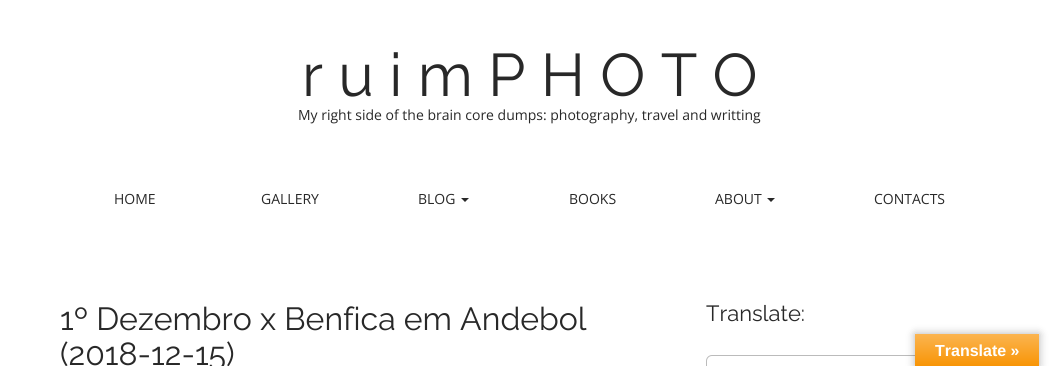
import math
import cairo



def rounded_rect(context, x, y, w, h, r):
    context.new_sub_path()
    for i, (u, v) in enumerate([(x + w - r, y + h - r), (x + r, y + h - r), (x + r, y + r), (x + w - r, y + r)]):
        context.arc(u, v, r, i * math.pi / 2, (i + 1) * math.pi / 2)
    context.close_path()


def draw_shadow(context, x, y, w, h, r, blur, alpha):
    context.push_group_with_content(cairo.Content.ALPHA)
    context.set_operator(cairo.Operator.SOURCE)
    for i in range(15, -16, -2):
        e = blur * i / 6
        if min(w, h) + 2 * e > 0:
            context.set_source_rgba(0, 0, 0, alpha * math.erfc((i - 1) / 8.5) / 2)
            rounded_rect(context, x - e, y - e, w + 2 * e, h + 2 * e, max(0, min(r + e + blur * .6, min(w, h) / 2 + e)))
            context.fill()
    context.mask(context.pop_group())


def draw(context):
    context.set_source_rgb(1, 1, 1)
    context.paint()
    context.set_source_rgb(40 / 255, 40 / 255, 40 / 255)
    context.new_path()
    context.move_to(461, 198)
    context.line_to(469, 198)
    context.line_to(465, 202)
    context.close_path()
    context.fill()
    context.new_path()
    context.move_to(767, 198)
    context.line_to(775, 198)
    context.line_to(771, 202)
    context.close_path()
    context.fill()
    rounded_rect(context, 706.5, 355.5, 292, 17, 5.5)
    context.set_source_rgb(187 / 255, 187 / 255, 187 / 255)
    context.set_line_width(1)
    context.stroke()
    context.set_source_rgb(0, 0, 0)
    draw_shadow(context, 915, 334, 124, 32, 0, 4.5, 0.3)
    gradient = cairo.LinearGradient(977, 334, 977, 366)
    gradient.add_color_stop_rgba(0, 251 / 255, 180 / 255, 80 / 255, 1)
    gradient.add_color_stop_rgba(1, 248 / 255, 148 / 255, 6 / 255, 1)
    context.set_source(gradient)
    context.rectangle(915, 334, 124, 32)
    context.fill()
    context.select_font_face("Raleway Thin")
    context.set_font_size(60)
    context.set_source_rgb(40 / 255, 40 / 255, 40 / 255)
    context.move_to(302, 96)
    context.show_text("r u i m P H O T O")
    context.select_font_face("Open Sans")
    context.set_font_size(14)
    context.move_to(298, 120)
    context.show_text("My right side of the brain core dumps: photography, travel and writting")
    context.move_to(114, 204)
    context.show_text("HOME")
    context.move_to(261, 204)
    context.show_text("GALLERY")
    context.move_to(418, 204)
    context.show_text("BLOG")
    context.move_to(569, 204)
    context.show_text("BOOKS")
    context.move_to(715, 204)
    context.show_text("ABOUT")
    context.move_to(874, 204)
    context.show_text("CONTACTS")
    context.select_font_face("Raleway Thin")
    context.set_font_size(32)
    context.move_to(60, 330)
    context.show_text("1º Dezembro x Benfica em Andebol")
    context.move_to(60, 365)
    context.show_text("(2018-12-15)")
    context.set_font_size(22)
    context.move_to(706, 321)
    context.show_text("Translate:")
    context.select_font_face("Liberation Sans", cairo.FontSlant.NORMAL, cairo.FontWeight.BOLD)
    context.set_font_size(16)
    context.set_source_rgb(1, 1, 1)
    context.move_to(935, 356)
    context.show_text("Translate »")


surface = cairo.ImageSurface(cairo.Format.RGB24, 1059, 366)
context = cairo.Context(surface)
options = cairo.FontOptions()
options.set_hint_metrics(cairo.HintMetrics.OFF)
options.set_hint_style(cairo.HintStyle.NONE)
context.set_font_options(options)
context.set_miter_limit(4)
draw(context)
surface.write_to_png("out.png")
